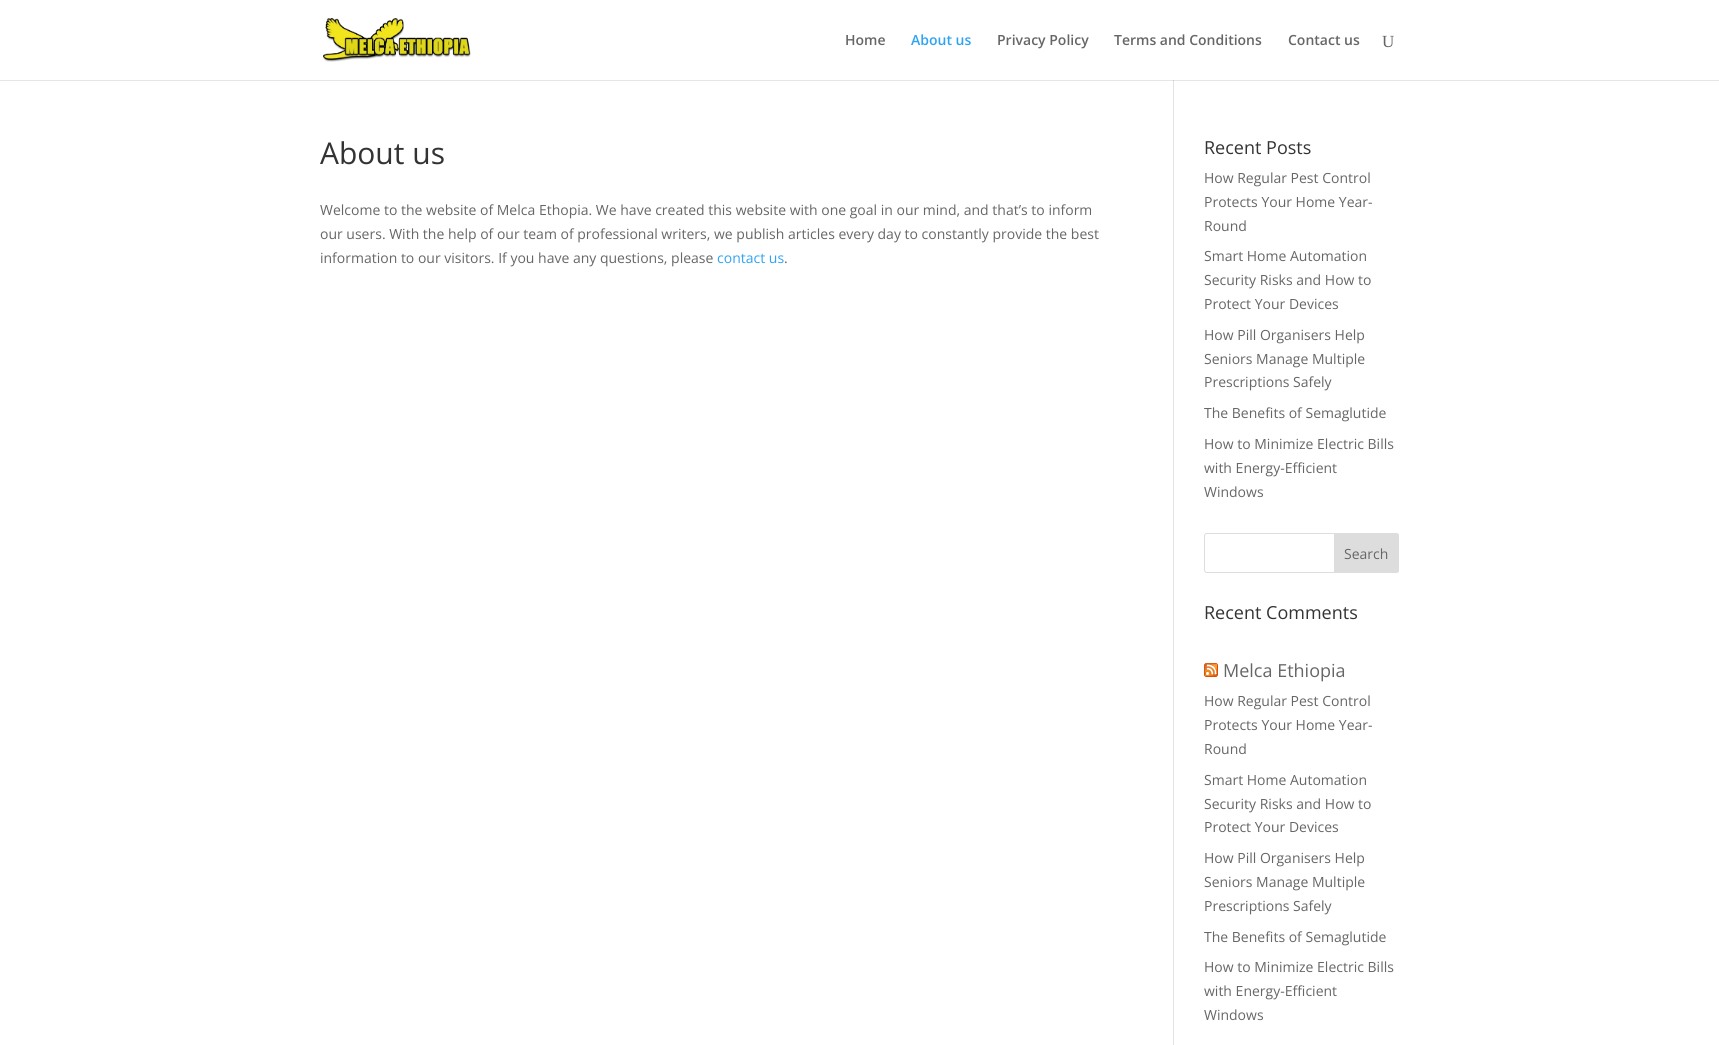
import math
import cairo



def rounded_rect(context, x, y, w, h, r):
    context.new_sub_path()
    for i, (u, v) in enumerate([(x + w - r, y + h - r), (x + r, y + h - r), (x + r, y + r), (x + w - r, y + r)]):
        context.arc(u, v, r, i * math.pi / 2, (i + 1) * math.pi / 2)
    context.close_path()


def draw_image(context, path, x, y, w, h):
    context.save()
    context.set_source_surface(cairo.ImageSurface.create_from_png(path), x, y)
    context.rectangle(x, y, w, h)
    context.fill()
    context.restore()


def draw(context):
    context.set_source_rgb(1, 1, 1)
    context.paint()
    context.set_source_rgb(230 / 255, 230 / 255, 230 / 255)
    context.rectangle(0, 80, 1719, 1)
    context.fill()
    draw_image(context, "images/1.png", 323, 18, 148, 44)
    context.set_source_rgb(226 / 255, 226 / 255, 226 / 255)
    context.rectangle(1173, 80, 1, 965)
    context.fill()
    context.set_source_rgb(203 / 255, 203 / 255, 203 / 255)
    context.rectangle(1173, 80, 1, 1)
    context.fill()
    rounded_rect(context, 1204.5, 533.5, 194, 39, 2.5)
    context.set_source_rgb(221 / 255, 221 / 255, 221 / 255)
    context.set_line_width(1)
    context.stroke()
    context.new_path()
    context.move_to(1334.5, 533.5)
    context.line_to(1396, 533.5)
    context.curve_to(1397.5, 533.5, 1398.5, 534.5, 1398.5, 536)
    context.line_to(1398.5, 570)
    context.curve_to(1398.5, 571.5, 1397.5, 572.5, 1396, 572.5)
    context.line_to(1334.5, 572.5)
    context.close_path()
    context.fill_preserve()
    context.stroke()
    draw_image(context, "images/2.png", 1204, 663, 14, 14)
    context.select_font_face("Open Sans SemiBold")
    context.set_font_size(14)
    context.set_source_rgb(102 / 255, 102 / 255, 102 / 255)
    context.move_to(845, 45)
    context.show_text("Home")
    context.set_source_rgb(46 / 255, 163 / 255, 242 / 255)
    context.move_to(911, 45)
    context.show_text("About us")
    context.set_source_rgb(102 / 255, 102 / 255, 102 / 255)
    context.move_to(997, 45)
    context.show_text("Privacy Policy")
    context.move_to(1114, 45)
    context.show_text("Terms and Conditions")
    context.move_to(1288, 45)
    context.show_text("Contact us")
    context.select_font_face("Liberation Serif")
    context.set_font_size(17)
    context.move_to(1382, 47)
    context.show_text("U")
    context.select_font_face("Open Sans")
    context.set_font_size(30)
    context.set_source_rgb(51 / 255, 51 / 255, 51 / 255)
    context.move_to(320, 164)
    context.show_text("About us")
    context.set_font_size(14)
    context.set_source_rgb(102 / 255, 102 / 255, 102 / 255)
    context.move_to(320, 215)
    context.show_text("Welcome to the website of Melca Ethopia. We have created this website with one goal in our mind, and that’s to inform")
    context.move_to(320, 239)
    context.show_text("our users. With the help of our team of professional writers, we publish articles every day to constantly provide the best")
    context.move_to(320, 263)
    context.show_text("information to our visitors. If you have any questions, please")
    context.set_source_rgb(46 / 255, 163 / 255, 242 / 255)
    context.move_to(717, 263)
    context.show_text("contact us")
    context.set_source_rgb(102 / 255, 102 / 255, 102 / 255)
    context.move_to(784, 263)
    context.show_text(".")
    context.set_font_size(18)
    context.set_source_rgb(51 / 255, 51 / 255, 51 / 255)
    context.move_to(1204, 154)
    context.show_text("Recent Posts")
    context.set_font_size(14)
    context.set_source_rgb(102 / 255, 102 / 255, 102 / 255)
    context.move_to(1204, 183)
    context.show_text("How Regular Pest Control")
    context.move_to(1204, 207)
    context.show_text("Protects Your Home Year-")
    context.move_to(1204, 231)
    context.show_text("Round")
    context.move_to(1204, 261)
    context.show_text("Smart Home Automation")
    context.move_to(1204, 285)
    context.show_text("Security Risks and How to")
    context.move_to(1204, 309)
    context.show_text("Protect Your Devices")
    context.move_to(1204, 340)
    context.show_text("How Pill Organisers Help")
    context.move_to(1204, 364)
    context.show_text("Seniors Manage Multiple")
    context.move_to(1204, 387)
    context.show_text("Prescriptions Safely")
    context.move_to(1204, 418)
    context.show_text("The Benefits of Semaglutide")
    context.move_to(1204, 449)
    context.show_text("How to Minimize Electric Bills")
    context.move_to(1204, 473)
    context.show_text("with Energy-Efficient")
    context.move_to(1204, 497)
    context.show_text("Windows")
    context.move_to(1344, 559)
    context.show_text("Search")
    context.set_font_size(18)
    context.set_source_rgb(51 / 255, 51 / 255, 51 / 255)
    context.move_to(1204, 619)
    context.show_text("Recent Comments")
    context.set_source_rgb(102 / 255, 102 / 255, 102 / 255)
    context.move_to(1223, 677)
    context.show_text("Melca Ethiopia")
    context.set_font_size(14)
    context.move_to(1204, 706)
    context.show_text("How Regular Pest Control")
    context.move_to(1204, 730)
    context.show_text("Protects Your Home Year-")
    context.move_to(1204, 754)
    context.show_text("Round")
    context.move_to(1204, 785)
    context.show_text("Smart Home Automation")
    context.move_to(1204, 809)
    context.show_text("Security Risks and How to")
    context.move_to(1204, 832)
    context.show_text("Protect Your Devices")
    context.move_to(1204, 863)
    context.show_text("How Pill Organisers Help")
    context.move_to(1204, 887)
    context.show_text("Seniors Manage Multiple")
    context.move_to(1204, 911)
    context.show_text("Prescriptions Safely")
    context.move_to(1204, 942)
    context.show_text("The Benefits of Semaglutide")
    context.move_to(1204, 972)
    context.show_text("How to Minimize Electric Bills")
    context.move_to(1204, 996)
    context.show_text("with Energy-Efficient")
    context.move_to(1204, 1020)
    context.show_text("Windows")


surface = cairo.ImageSurface(cairo.Format.RGB24, 1719, 1045)
context = cairo.Context(surface)
options = cairo.FontOptions()
options.set_hint_metrics(cairo.HintMetrics.OFF)
options.set_hint_style(cairo.HintStyle.NONE)
context.set_font_options(options)
context.set_miter_limit(4)
draw(context)
surface.write_to_png("out.png")
